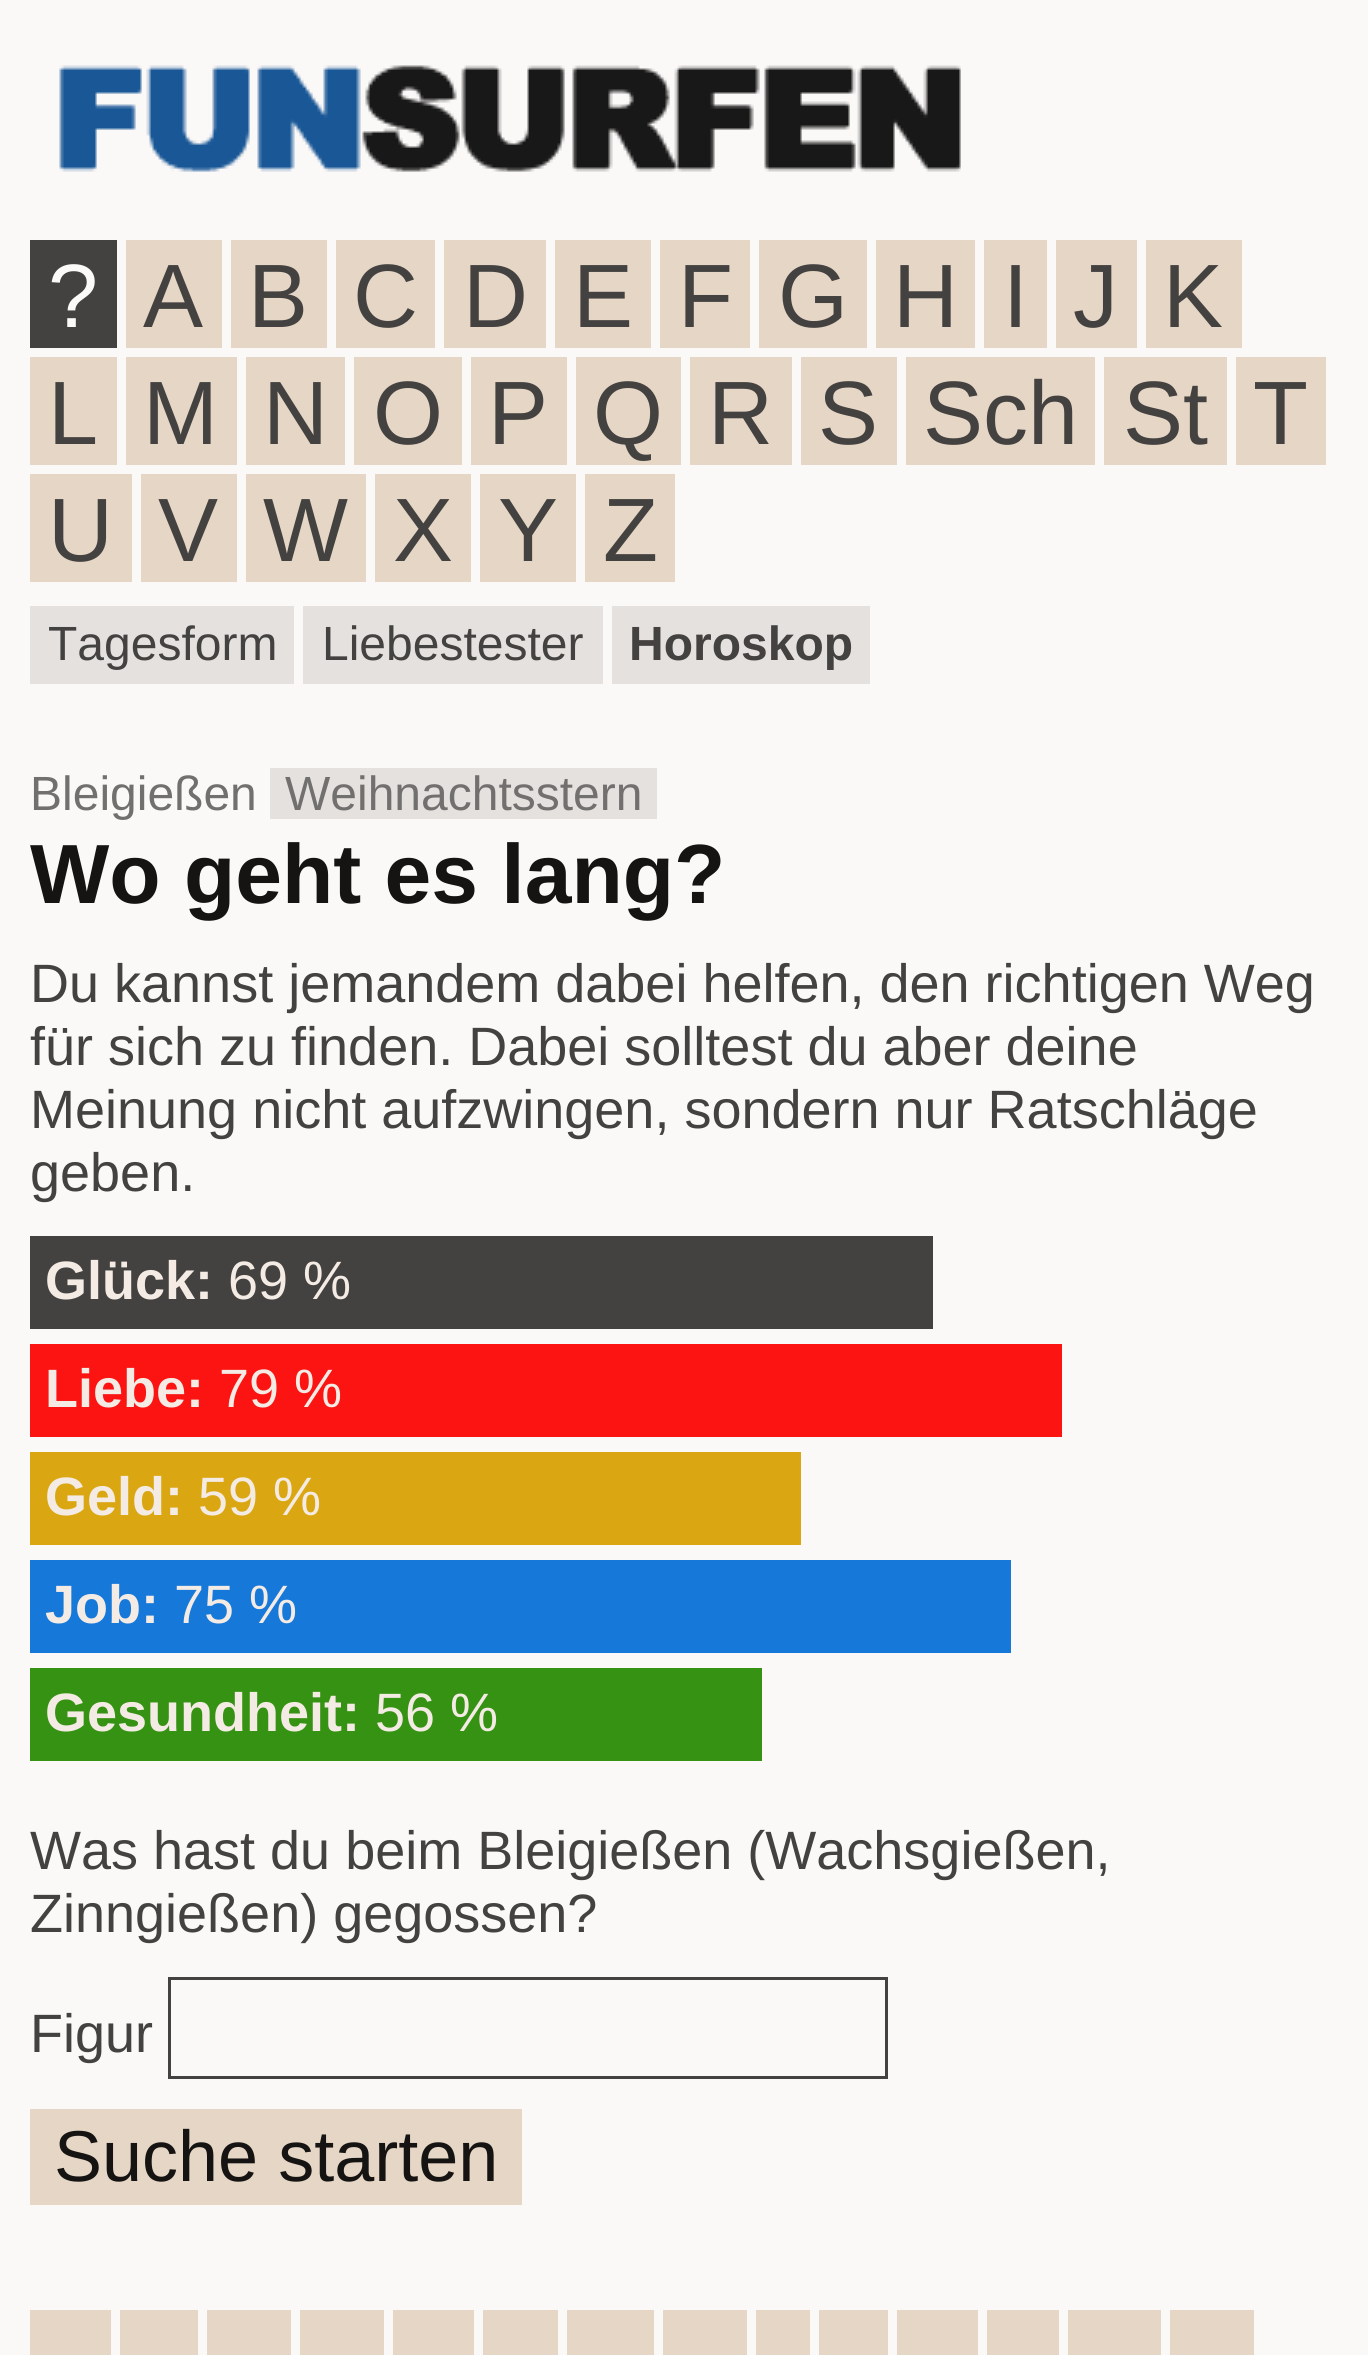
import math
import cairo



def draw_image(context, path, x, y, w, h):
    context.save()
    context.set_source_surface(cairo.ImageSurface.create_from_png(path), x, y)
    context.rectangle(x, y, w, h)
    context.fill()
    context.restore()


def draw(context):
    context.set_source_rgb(251 / 255, 249 / 255, 248 / 255)
    context.paint()
    draw_image(context, "images/1.png", 59, 65, 902, 107)
    context.set_source_rgb(68 / 255, 66 / 255, 64 / 255)
    context.rectangle(30, 240, 87, 108)
    context.fill()
    context.set_source_rgb(230 / 255, 214 / 255, 198 / 255)
    context.rectangle(126, 240, 96, 108)
    context.fill()
    context.rectangle(231, 240, 96, 108)
    context.fill()
    context.rectangle(336, 240, 99, 108)
    context.fill()
    context.rectangle(444, 240, 102, 108)
    context.fill()
    context.rectangle(555, 240, 96, 108)
    context.fill()
    context.rectangle(660, 240, 90, 108)
    context.fill()
    context.rectangle(759, 240, 108, 108)
    context.fill()
    context.rectangle(876, 240, 99, 108)
    context.fill()
    context.rectangle(984, 240, 63, 108)
    context.fill()
    context.rectangle(1056, 240, 81, 108)
    context.fill()
    context.rectangle(1146, 240, 96, 108)
    context.fill()
    context.rectangle(30, 357, 87, 108)
    context.fill()
    context.rectangle(126, 357, 111, 108)
    context.fill()
    context.rectangle(246, 357, 99, 108)
    context.fill()
    context.rectangle(354, 357, 108, 108)
    context.fill()
    context.rectangle(471, 357, 96, 108)
    context.fill()
    context.rectangle(576, 357, 105, 108)
    context.fill()
    context.rectangle(690, 357, 102, 108)
    context.fill()
    context.rectangle(801, 357, 96, 108)
    context.fill()
    context.rectangle(906, 357, 189, 108)
    context.fill()
    context.rectangle(1104, 357, 123, 108)
    context.fill()
    context.rectangle(1236, 357, 90, 108)
    context.fill()
    context.rectangle(30, 474, 102, 108)
    context.fill()
    context.rectangle(141, 474, 96, 108)
    context.fill()
    context.rectangle(246, 474, 120, 108)
    context.fill()
    context.rectangle(375, 474, 96, 108)
    context.fill()
    context.rectangle(480, 474, 96, 108)
    context.fill()
    context.rectangle(585, 474, 90, 108)
    context.fill()
    context.set_source_rgb(228 / 255, 225 / 255, 223 / 255)
    context.rectangle(30, 606, 264, 78)
    context.fill()
    context.rectangle(303, 606, 300, 78)
    context.fill()
    context.rectangle(612, 606, 258, 78)
    context.fill()
    context.rectangle(270, 768, 387, 51)
    context.fill()
    context.set_source_rgb(68 / 255, 66 / 255, 64 / 255)
    context.rectangle(30, 1236, 903, 93)
    context.fill()
    context.set_source_rgb(252 / 255, 20 / 255, 18 / 255)
    context.rectangle(30, 1344, 1032, 93)
    context.fill()
    context.set_source_rgb(218 / 255, 167 / 255, 18 / 255)
    context.rectangle(30, 1452, 771, 93)
    context.fill()
    context.set_source_rgb(22 / 255, 120 / 255, 217 / 255)
    context.rectangle(30, 1560, 981, 93)
    context.fill()
    context.set_source_rgb(54 / 255, 146 / 255, 18 / 255)
    context.rectangle(30, 1668, 732, 93)
    context.fill()
    context.rectangle(169.5, 1978.5, 717, 99)
    context.set_source_rgb(68 / 255, 66 / 255, 64 / 255)
    context.set_line_width(3)
    context.stroke()
    context.set_source_rgb(230 / 255, 214 / 255, 198 / 255)
    context.rectangle(30, 2109, 492, 96)
    context.fill()
    context.rectangle(30, 2310, 81, 45)
    context.fill()
    context.rectangle(120, 2310, 78, 45)
    context.fill()
    context.rectangle(207, 2310, 84, 45)
    context.fill()
    context.rectangle(300, 2310, 84, 45)
    context.fill()
    context.rectangle(393, 2310, 81, 45)
    context.fill()
    context.rectangle(483, 2310, 75, 45)
    context.fill()
    context.rectangle(567, 2310, 87, 45)
    context.fill()
    context.rectangle(663, 2310, 84, 45)
    context.fill()
    context.rectangle(756, 2310, 54, 45)
    context.fill()
    context.rectangle(819, 2310, 69, 45)
    context.fill()
    context.rectangle(897, 2310, 81, 45)
    context.fill()
    context.rectangle(987, 2310, 72, 45)
    context.fill()
    context.rectangle(1068, 2310, 93, 45)
    context.fill()
    context.rectangle(1170, 2310, 84, 45)
    context.fill()
    context.select_font_face("Liberation Sans")
    context.set_font_size(90)
    context.set_source_rgb(252 / 255, 250 / 255, 248 / 255)
    context.move_to(48, 327)
    context.show_text("?")
    context.set_source_rgb(68 / 255, 66 / 255, 64 / 255)
    context.move_to(143, 327)
    context.show_text("A")
    context.move_to(248, 327)
    context.show_text("B")
    context.move_to(353, 327)
    context.show_text("C")
    context.move_to(463, 327)
    context.show_text("D")
    context.move_to(573, 327)
    context.show_text("E")
    context.move_to(678, 327)
    context.show_text("F")
    context.move_to(778, 327)
    context.show_text("G")
    context.move_to(893, 327)
    context.show_text("H")
    context.move_to(1003, 327)
    context.show_text("I")
    context.move_to(1073, 327)
    context.show_text("J")
    context.move_to(1163, 327)
    context.show_text("K")
    context.move_to(48, 444)
    context.show_text("L")
    context.move_to(143, 444)
    context.show_text("M")
    context.move_to(263, 444)
    context.show_text("N")
    context.move_to(373, 444)
    context.show_text("O")
    context.move_to(488, 444)
    context.show_text("P")
    context.move_to(593, 444)
    context.show_text("Q")
    context.move_to(708, 444)
    context.show_text("R")
    context.move_to(818, 444)
    context.show_text("S")
    context.move_to(923, 444)
    context.show_text("Sch")
    context.move_to(1123, 444)
    context.show_text("St")
    context.move_to(1253, 444)
    context.show_text("T")
    context.move_to(48, 561)
    context.show_text("U")
    context.move_to(158, 561)
    context.show_text("V")
    context.move_to(263, 561)
    context.show_text("W")
    context.move_to(393, 561)
    context.show_text("X")
    context.move_to(498, 561)
    context.show_text("Y")
    context.move_to(603, 561)
    context.show_text("Z")
    context.set_font_size(48)
    context.move_to(48, 660)
    context.show_text("Tagesform")
    context.move_to(322, 660)
    context.show_text("Liebestester")
    context.select_font_face("Liberation Sans", cairo.FontSlant.NORMAL, cairo.FontWeight.BOLD)
    context.move_to(629, 660)
    context.show_text("Horoskop")
    context.select_font_face("Liberation Sans")
    context.set_source_rgb(114 / 255, 112 / 255, 110 / 255)
    context.move_to(30, 810)
    context.show_text("Bleigießen")
    context.move_to(285, 810)
    context.show_text("Weihnachtsstern")
    context.select_font_face("Liberation Sans", cairo.FontSlant.NORMAL, cairo.FontWeight.BOLD)
    context.set_font_size(84)
    context.set_source_rgb(22 / 255, 20 / 255, 18 / 255)
    context.move_to(30, 903)
    context.show_text("Wo geht es lang?")
    context.select_font_face("Liberation Sans")
    context.set_font_size(54)
    context.set_source_rgb(68 / 255, 66 / 255, 64 / 255)
    context.move_to(30, 1002)
    context.show_text("Du kannst jemandem dabei helfen, den richtigen Weg")
    context.move_to(30, 1065)
    context.show_text("für sich zu finden. Dabei solltest du aber deine")
    context.move_to(30, 1128)
    context.show_text("Meinung nicht aufzwingen, sondern nur Ratschläge")
    context.move_to(30, 1191)
    context.show_text("geben.")
    context.select_font_face("Liberation Sans", cairo.FontSlant.NORMAL, cairo.FontWeight.BOLD)
    context.set_source_rgb(243 / 255, 235 / 255, 228 / 255)
    context.move_to(45, 1299)
    context.show_text("Glück:")
    context.select_font_face("Liberation Sans")
    context.move_to(228, 1299)
    context.show_text("69 %")
    context.select_font_face("Liberation Sans", cairo.FontSlant.NORMAL, cairo.FontWeight.BOLD)
    context.move_to(45, 1407)
    context.show_text("Liebe:")
    context.select_font_face("Liberation Sans")
    context.move_to(219, 1407)
    context.show_text("79 %")
    context.select_font_face("Liberation Sans", cairo.FontSlant.NORMAL, cairo.FontWeight.BOLD)
    context.move_to(45, 1515)
    context.show_text("Geld:")
    context.select_font_face("Liberation Sans")
    context.move_to(198, 1515)
    context.show_text("59 %")
    context.select_font_face("Liberation Sans", cairo.FontSlant.NORMAL, cairo.FontWeight.BOLD)
    context.move_to(45, 1623)
    context.show_text("Job:")
    context.select_font_face("Liberation Sans")
    context.move_to(174, 1623)
    context.show_text("75 %")
    context.select_font_face("Liberation Sans", cairo.FontSlant.NORMAL, cairo.FontWeight.BOLD)
    context.move_to(45, 1731)
    context.show_text("Gesundheit:")
    context.select_font_face("Liberation Sans")
    context.move_to(375, 1731)
    context.show_text("56 %")
    context.set_source_rgb(68 / 255, 66 / 255, 64 / 255)
    context.move_to(30, 1869)
    context.show_text("Was hast du beim Bleigießen (Wachsgießen,")
    context.move_to(30, 1932)
    context.show_text("Zinngießen) gegossen?")
    context.move_to(30, 2052)
    context.show_text("Figur")
    context.set_font_size(72)
    context.set_source_rgb(22 / 255, 20 / 255, 18 / 255)
    context.move_to(54, 2181)
    context.show_text("Suche starten")


surface = cairo.ImageSurface(cairo.Format.RGB24, 1368, 2355)
context = cairo.Context(surface)
options = cairo.FontOptions()
options.set_hint_metrics(cairo.HintMetrics.OFF)
options.set_hint_style(cairo.HintStyle.NONE)
context.set_font_options(options)
context.set_miter_limit(4)
draw(context)
surface.write_to_png("out.png")
